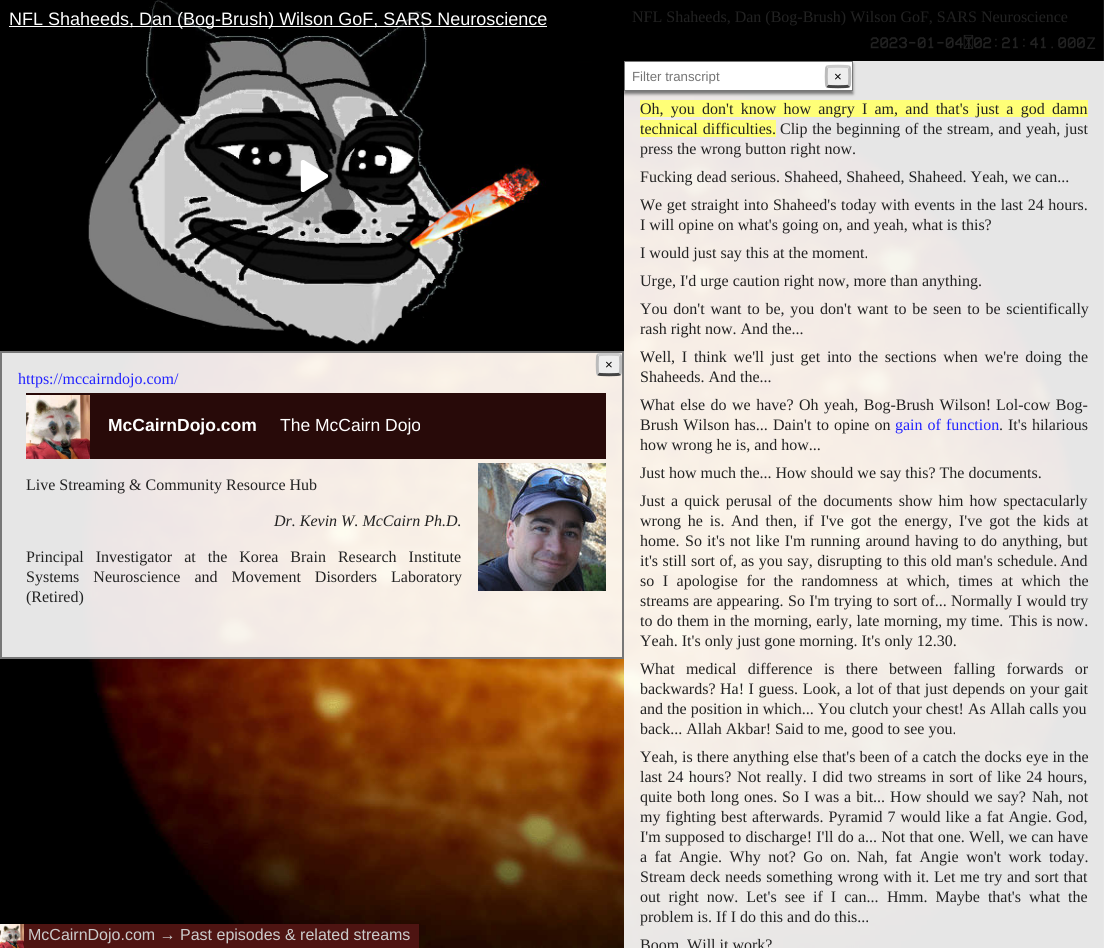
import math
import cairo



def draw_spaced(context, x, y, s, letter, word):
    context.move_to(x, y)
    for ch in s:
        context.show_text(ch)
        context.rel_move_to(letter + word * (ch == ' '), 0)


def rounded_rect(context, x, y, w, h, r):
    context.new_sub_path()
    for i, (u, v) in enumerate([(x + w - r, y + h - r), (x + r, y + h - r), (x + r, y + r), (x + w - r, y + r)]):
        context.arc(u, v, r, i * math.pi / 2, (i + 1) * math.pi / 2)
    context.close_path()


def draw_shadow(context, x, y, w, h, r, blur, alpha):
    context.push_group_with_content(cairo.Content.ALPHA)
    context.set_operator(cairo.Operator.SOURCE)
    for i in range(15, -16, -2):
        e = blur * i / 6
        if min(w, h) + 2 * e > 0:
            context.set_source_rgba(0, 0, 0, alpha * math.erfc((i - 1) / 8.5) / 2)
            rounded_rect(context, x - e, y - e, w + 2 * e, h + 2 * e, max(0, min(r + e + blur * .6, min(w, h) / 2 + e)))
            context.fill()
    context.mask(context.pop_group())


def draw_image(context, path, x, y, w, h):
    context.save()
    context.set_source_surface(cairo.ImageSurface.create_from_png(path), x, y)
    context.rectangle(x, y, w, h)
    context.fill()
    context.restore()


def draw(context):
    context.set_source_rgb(1, 1, 1)
    context.paint()
    draw_image(context, "images/1.png", 0, 0, 1104, 948)
    context.set_source_rgb(0, 0, 0)
    context.rectangle(129, 63, 495, 288)
    context.fill()
    draw_image(context, "images/2.png", 88, 0, 458, 345)
    gradient = cairo.LinearGradient(312, 0, 312, 39)
    gradient.add_color_stop_rgba(0, 0, 0, 0, 0.7)
    gradient.add_color_stop_rgba(1, 0, 0, 0, 0)
    context.set_source(gradient)
    context.rectangle(149, 0, 277, 38)
    context.fill()
    context.set_source_rgb(1, 1, 1)
    context.rectangle(9, 26, 538, 1)
    context.fill()
    context.set_source_rgba(0, 0, 0, 0.2)
    context.arc(312, 176, 48, 0, 2 * math.pi)
    context.fill()
    context.set_source_rgb(1, 1, 1)
    context.new_path()
    context.move_to(326, 176)
    context.line_to(303, 162)
    context.line_to(303, 190)
    context.close_path()
    context.fill()
    context.save()
    context.rectangle(296, 160, 32, 32)
    context.clip()
    context.new_path()
    context.move_to(326, 176)
    context.line_to(303, 162)
    context.line_to(303, 190)
    context.close_path()
    context.set_line_width(4.4)
    context.set_line_join(cairo.LineJoin.ROUND)
    context.stroke()
    context.restore()
    context.set_source_rgba(1, 1, 1, 0.9)
    context.rectangle(1, 352, 622, 306)
    context.fill_preserve()
    context.set_source_rgb(119 / 255, 119 / 255, 119 / 255)
    context.stroke()
    context.set_source_rgb(238 / 255, 238 / 255, 238 / 255)
    rounded_rect(context, 596, 353, 26, 23, 3)
    context.fill()
    context.save()
    context.rectangle(2, 353, 620, 304)
    context.clip()
    context.new_path()
    context.move_to(598, 355)
    context.curve_to(599, 354, 619, 354, 620, 355)
    context.set_source_rgb(204 / 255, 204 / 255, 204 / 255)
    context.set_line_width(3)
    context.stroke()
    context.new_path()
    context.move_to(620, 355)
    context.curve_to(621, 355.5, 621, 373.5, 620, 374)
    context.set_source_rgb(187 / 255, 187 / 255, 187 / 255)
    context.stroke()
    context.restore()
    context.new_path()
    context.move_to(620, 374)
    context.curve_to(619, 375, 599, 375, 598, 374)
    context.set_source_rgb(68 / 255, 68 / 255, 68 / 255)
    context.set_line_width(3)
    context.stroke()
    context.new_path()
    context.move_to(598, 374)
    context.curve_to(597, 373.5, 597, 355.5, 598, 355)
    context.set_source_rgb(187 / 255, 187 / 255, 187 / 255)
    context.stroke()
    context.set_source_rgb(40 / 255, 10 / 255, 9 / 255)
    context.rectangle(26, 393, 580, 66)
    context.fill()
    draw_image(context, "images/3.png", 26, 395, 64, 64)
    draw_image(context, "images/4.png", 478, 463, 128, 128)
    context.set_source_rgba(1, 1, 1, 0.9)
    context.rectangle(624, 61, 480, 887)
    context.fill()
    context.save()
    context.rectangle(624, 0, 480, 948)
    context.clip()
    context.set_source_rgb(119 / 255, 119 / 255, 119 / 255)
    draw_shadow(context, 624, 64, 229, 30, 0, 1.5, 1)
    context.restore()
    context.set_source_rgb(1, 1, 1)
    context.rectangle(624.5, 61.5, 228, 29)
    context.fill_preserve()
    context.set_source_rgb(119 / 255, 119 / 255, 119 / 255)
    context.set_line_width(1)
    context.stroke()
    context.set_source_rgb(238 / 255, 238 / 255, 238 / 255)
    rounded_rect(context, 825, 65, 26, 23, 3)
    context.fill()
    context.new_path()
    context.move_to(827, 67)
    context.curve_to(828, 66, 848, 66, 849, 67)
    context.set_source_rgb(204 / 255, 204 / 255, 204 / 255)
    context.set_line_width(3)
    context.stroke()
    context.new_path()
    context.move_to(849, 67)
    context.curve_to(850, 67.5, 850, 85.5, 849, 86)
    context.set_source_rgb(187 / 255, 187 / 255, 187 / 255)
    context.stroke()
    context.new_path()
    context.move_to(849, 86)
    context.curve_to(848, 87, 828, 87, 827, 86)
    context.set_source_rgb(68 / 255, 68 / 255, 68 / 255)
    context.stroke()
    context.new_path()
    context.move_to(827, 86)
    context.curve_to(826, 85.5, 826, 67.5, 827, 67)
    context.set_source_rgb(187 / 255, 187 / 255, 187 / 255)
    context.stroke()
    context.set_source_rgb(1, 1, 119 / 255)
    context.rectangle(640, 100, 448, 17)
    context.fill()
    context.rectangle(640, 120, 136, 17)
    context.fill()
    context.set_source_rgb(78 / 255, 20 / 255, 18 / 255)
    context.rectangle(24, 924, 395, 24)
    context.fill()
    draw_image(context, "images/5.png", 0, 924, 24, 24)
    context.select_font_face("Liberation Sans")
    context.set_font_size(18)
    context.set_source_rgb(1, 1, 1)
    context.move_to(9, 25)
    context.show_text("NFL Shaheeds, Dan (Bog-Brush) Wilson GoF, SARS Neuroscience")
    context.set_font_size(13.25)
    context.set_source_rgb(0, 0, 0)
    context.move_to(605, 369)
    context.show_text("×")
    context.select_font_face("Liberation Serif")
    context.set_font_size(16)
    context.set_source_rgb(34 / 255, 34 / 255, 1)
    context.move_to(18, 384)
    context.show_text("https://mccairndojo.com/")
    context.select_font_face("Liberation Sans", cairo.FontSlant.NORMAL, cairo.FontWeight.BOLD)
    context.set_font_size(17.5)
    context.set_source_rgb(1, 1, 1)
    context.move_to(108, 431)
    context.show_text("McCairnDojo.com")
    context.select_font_face("Liberation Sans")
    context.move_to(280, 431)
    context.show_text("The McCairn Dojo")
    context.select_font_face("Liberation Serif")
    context.set_font_size(16)
    context.set_source_rgb(34 / 255, 34 / 255, 34 / 255)
    context.move_to(26, 490)
    context.show_text("Live Streaming & Community Resource Hub")
    context.select_font_face("Liberation Serif", cairo.FontSlant.ITALIC)
    context.move_to(274, 526)
    context.show_text("Dr. Kevin W. McCairn Ph.D.")
    context.select_font_face("Liberation Serif")
    draw_spaced(context, 26, 562, "Principal Investigator at the Korea Brain Research Institute", 0, 8)
    draw_spaced(context, 26, 582, "Systems Neuroscience and Movement Disorders Laboratory", 0, 10)
    context.move_to(26, 602)
    context.show_text("(Retired)")
    context.move_to(632, 22)
    context.show_text("NFL Shaheeds, Dan (Bog-Brush) Wilson GoF, SARS Neuroscience")
    context.select_font_face("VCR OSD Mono")
    context.move_to(870, 49)
    context.show_text("2023-01-04 02:21:41.000")
    context.select_font_face("DejaVu Sans Mono")
    context.move_to(964, 49)
    context.show_text("T")
    context.move_to(1086, 49)
    context.show_text("Z")
    context.select_font_face("Liberation Sans")
    context.set_font_size(13.25)
    context.set_source_rgb(117 / 255, 117 / 255, 117 / 255)
    context.move_to(632, 81)
    context.show_text("Filter transcript")
    context.set_source_rgb(0, 0, 0)
    context.move_to(834, 81)
    context.show_text("×")
    context.select_font_face("Liberation Serif")
    context.set_font_size(16)
    context.set_source_rgb(34 / 255, 34 / 255, 34 / 255)
    draw_spaced(context, 640, 114, "Oh, you don't know how angry I am, and that's just a god damn", 0, 3.25)
    draw_spaced(context, 640, 134, "technical difficulties.", 0, 1)
    draw_spaced(context, 780, 134, "Clip the beginning of the stream, and yeah, just", 0, 0.6)
    context.move_to(640, 154)
    context.show_text("press the wrong button right now.")
    context.move_to(640, 182)
    context.show_text("Fucking dead serious. Shaheed, Shaheed, Shaheed. Yeah, we can...")
    draw_spaced(context, 640, 210, "We get straight into Shaheed's today with events in the last 24 hours.", 0, 0.6)
    context.move_to(640, 230)
    context.show_text("I will opine on what's going on, and yeah, what is this?")
    context.move_to(640, 258)
    context.show_text("I would just say this at the moment.")
    context.move_to(640, 286)
    context.show_text("Urge, I'd urge caution right now, more than anything.")
    draw_spaced(context, 640, 314, "You don't want to be, you don't want to be seen to be scientifically", 0, 1.75)
    context.move_to(640, 334)
    context.show_text("rash right now. And the...")
    draw_spaced(context, 640, 362, "Well, I think we'll just get into the sections when we're doing the", 0, 2.75)
    context.move_to(640, 382)
    context.show_text("Shaheeds. And the...")
    draw_spaced(context, 640, 410, "What else do we have? Oh yeah, Bog-Brush Wilson!", 0, 1.5)
    draw_spaced(context, 996, 410, "Lol-cow Bog-", 0, 1.5)
    draw_spaced(context, 640, 430, "Brush Wilson has...", 0, 1)
    draw_spaced(context, 773, 430, "Dain't to opine on", 0, 1)
    context.set_source_rgb(34 / 255, 34 / 255, 1)
    draw_spaced(context, 895, 430, "gain of function", 0, 1)
    context.set_source_rgb(34 / 255, 34 / 255, 34 / 255)
    draw_spaced(context, 999, 430, ". It's hilarious", 0, 1)
    context.move_to(640, 450)
    context.show_text("how wrong he is, and how...")
    context.move_to(640, 478)
    context.show_text("Just how much the... How should we say this? The documents.")
    draw_spaced(context, 640, 506, "Just a quick perusal of the documents show him how spectacularly", 0, 2.1)
    draw_spaced(context, 640, 526, "wrong he is.", 0, 2.9)
    draw_spaced(context, 731, 526, "And then, if I've got the energy, I've got the kids at", 0, 2.9)
    context.move_to(640, 546)
    context.show_text("home.")
    draw_spaced(context, 685, 546, "So it's not like I'm running around having to do anything, but", 0, 1.1)
    draw_spaced(context, 640, 566, "it's still sort of,", 0, 0.5)
    draw_spaced(context, 741, 566, "as you say, disrupting to this old man's schedule.", 0, 0.5)
    context.move_to(1060, 566)
    context.show_text("And")
    draw_spaced(context, 640, 586, "so I apologise for the randomness at which, times at which the", 0, 4.5)
    context.move_to(640, 606)
    context.show_text("streams are appearing.")
    draw_spaced(context, 788, 606, "So I'm trying to sort of... Normally I would try", 0, 0.25)
    draw_spaced(context, 640, 626, "to do them in the morning, early, late morning, my time.", 0, 0.25)
    draw_spaced(context, 1009, 626, "This is now.", 0, 0.25)
    context.move_to(640, 646)
    context.show_text("Yeah. It's only just gone morning. It's only 12.30.")
    draw_spaced(context, 640, 674, "What medical difference is there between falling forwards or", 0, 7.25)
    context.move_to(640, 694)
    context.show_text("backwards?")
    draw_spaced(context, 720, 694, "Ha! I guess. Look, a lot of that just depends on your gait", 0, 0.6)
    context.move_to(640, 714)
    context.show_text("and the position in which... You clutch your chest! As Allah calls you")
    context.move_to(640, 734)
    context.show_text("back... Allah Akbar! Said to me, good to see you.")
    draw_spaced(context, 640, 762, "Yeah, is there anything else that's been of a catch the docks eye in the", 0, 0.2)
    draw_spaced(context, 640, 782, "last 24 hours?", 0, 1.25)
    draw_spaced(context, 737, 782, "Not really. I did two streams in sort of like 24 hours,", 0, 1.25)
    draw_spaced(context, 640, 802, "quite both long ones.", 0, 1)
    draw_spaced(context, 782, 802, "So I was a bit... How should we say?", 0, 1)
    draw_spaced(context, 1032, 802, "Nah, not", 0, 1)
    draw_spaced(context, 640, 822, "my fighting best afterwards. Pyramid 7 would like a fat Angie.", 0, 1)
    context.move_to(1056, 822)
    context.show_text("God,")
    draw_spaced(context, 640, 842, "I'm supposed to discharge! I'll do a... Not that one. Well, we can have", 0, 0.25)
    draw_spaced(context, 640, 862, "a fat Angie. Why not? Go on.", 0, 3.5)
    draw_spaced(context, 857, 862, "Nah, fat Angie won't work today.", 0, 3.5)
    draw_spaced(context, 640, 882, "Stream deck needs something wrong with it.", 0, 0.75)
    draw_spaced(context, 934, 882, "Let me try and sort that", 0, 0.75)
    draw_spaced(context, 640, 902, "out right now. Let's see if I can...", 0, 4)
    draw_spaced(context, 887, 902, "Hmm. Maybe that's what the", 0, 4)
    context.move_to(640, 922)
    context.show_text("problem is. If I do this and do this...")
    context.move_to(640, 950)
    context.show_text("Boom. Will it work?")
    context.select_font_face("Liberation Sans")
    context.set_source_rgb(204 / 255, 204 / 255, 204 / 255)
    context.move_to(28, 940)
    context.show_text("McCairnDojo.com → Past episodes & related streams")


surface = cairo.ImageSurface(cairo.Format.RGB24, 1104, 948)
context = cairo.Context(surface)
options = cairo.FontOptions()
options.set_hint_metrics(cairo.HintMetrics.OFF)
options.set_hint_style(cairo.HintStyle.NONE)
context.set_font_options(options)
context.set_miter_limit(4)
draw(context)
surface.write_to_png("out.png")
